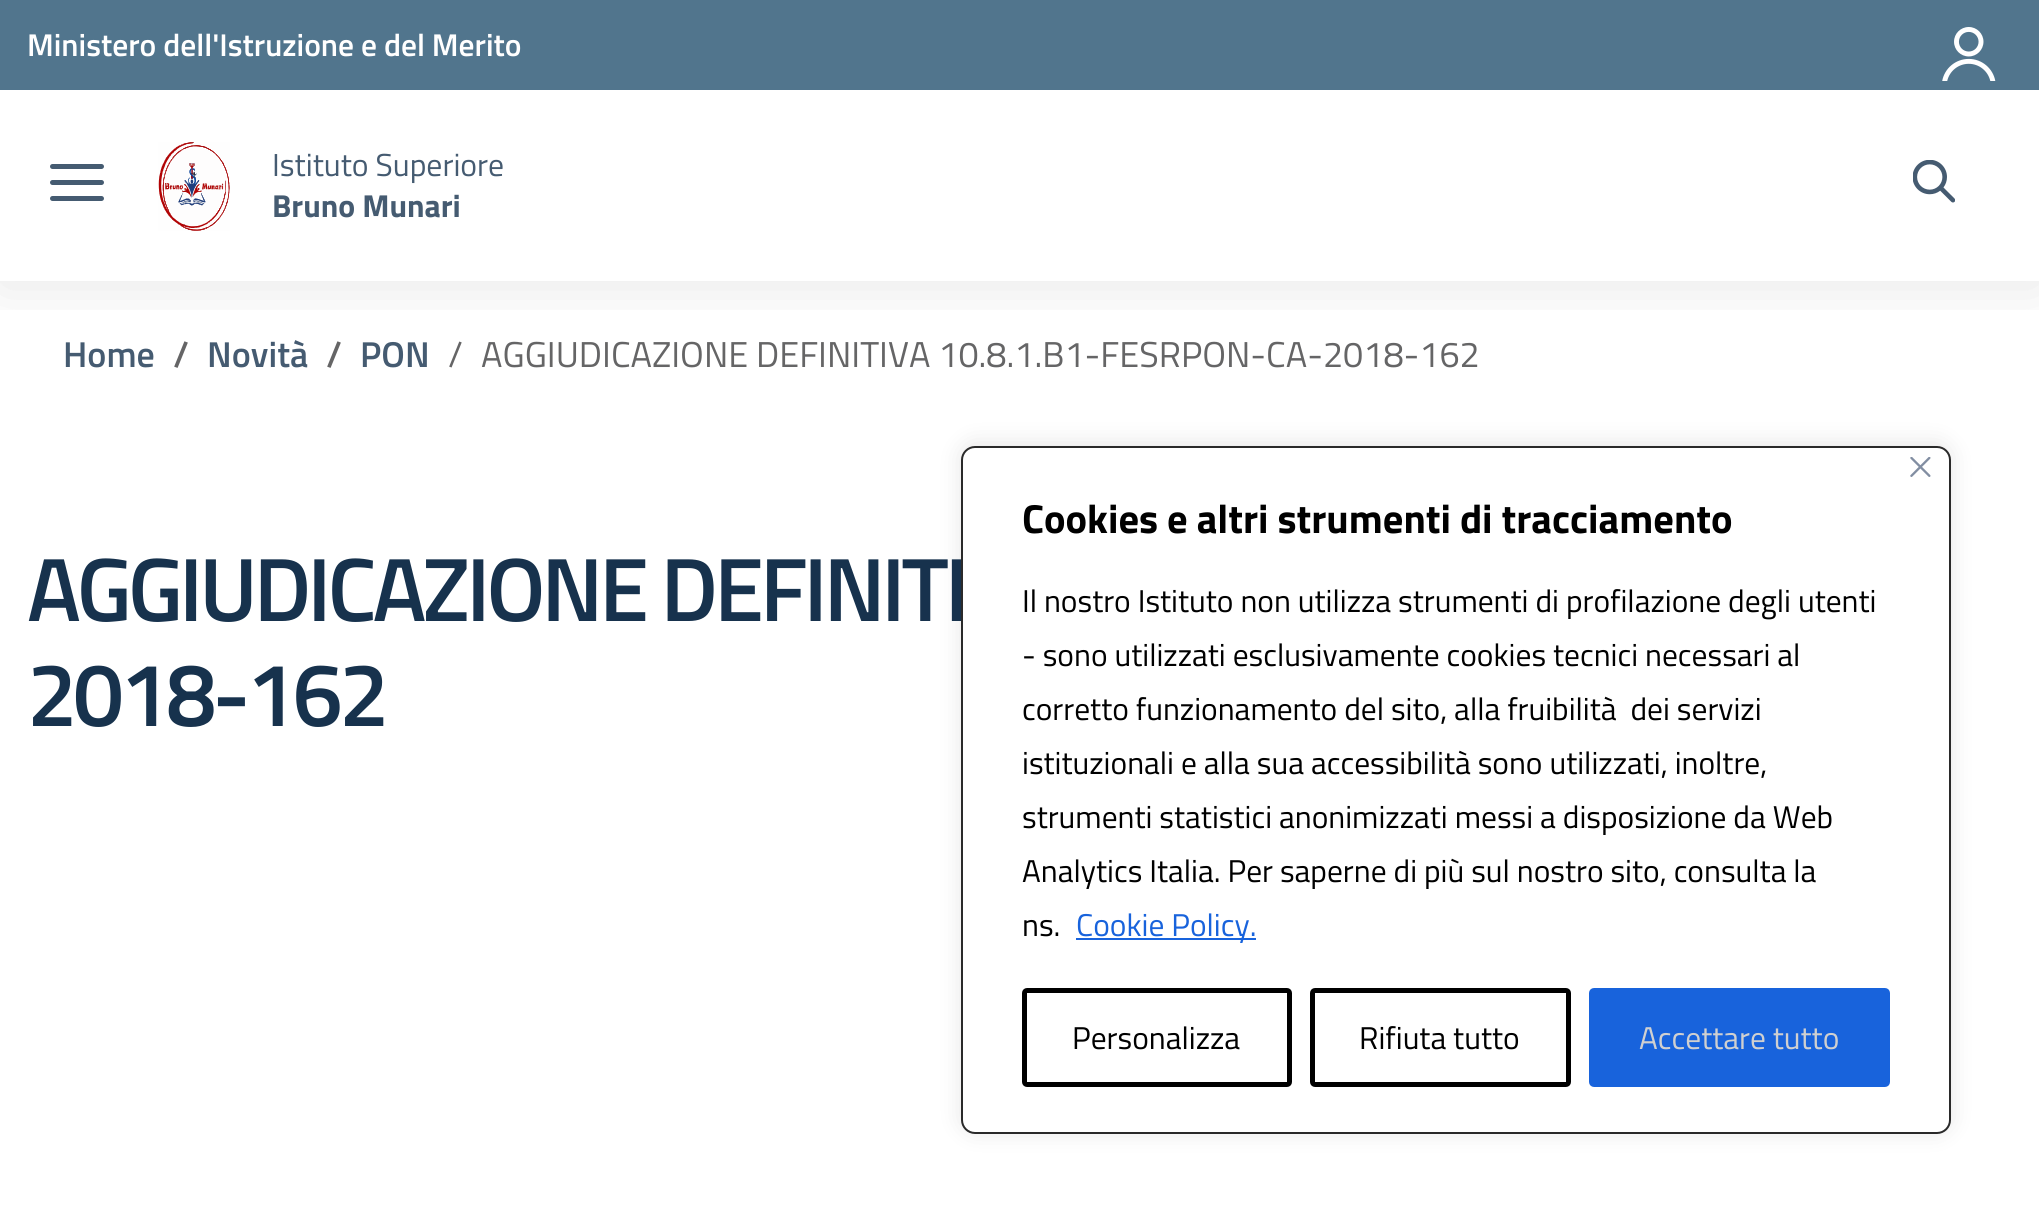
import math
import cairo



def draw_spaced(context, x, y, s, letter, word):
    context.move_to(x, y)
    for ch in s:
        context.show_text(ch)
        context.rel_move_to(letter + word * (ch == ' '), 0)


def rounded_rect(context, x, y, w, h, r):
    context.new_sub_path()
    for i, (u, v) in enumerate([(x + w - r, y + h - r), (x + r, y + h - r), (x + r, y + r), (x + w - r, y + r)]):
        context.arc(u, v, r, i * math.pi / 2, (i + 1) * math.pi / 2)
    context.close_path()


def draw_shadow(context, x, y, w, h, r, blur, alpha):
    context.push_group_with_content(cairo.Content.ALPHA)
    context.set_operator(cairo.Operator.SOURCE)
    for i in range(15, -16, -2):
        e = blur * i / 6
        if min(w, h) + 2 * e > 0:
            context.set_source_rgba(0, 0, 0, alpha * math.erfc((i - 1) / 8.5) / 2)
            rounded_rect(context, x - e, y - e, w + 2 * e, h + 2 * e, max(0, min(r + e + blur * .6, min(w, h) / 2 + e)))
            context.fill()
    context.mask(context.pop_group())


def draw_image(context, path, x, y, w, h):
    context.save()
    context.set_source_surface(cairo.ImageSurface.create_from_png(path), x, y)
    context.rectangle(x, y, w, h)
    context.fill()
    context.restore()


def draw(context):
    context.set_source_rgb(1, 1, 1)
    context.paint()
    context.save()
    context.rectangle(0, 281, 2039, 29)
    context.clip()
    context.set_source_rgb(0, 0, 0)
    draw_shadow(context, 0, 5, 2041, 281, 0, 28, 0.1)
    context.restore()
    context.set_source_rgb(81 / 255, 117 / 255, 141 / 255)
    context.rectangle(0, 0, 2039, 90)
    context.fill()
    draw_image(context, "images/1.png", 1942, 27, 54, 54)
    context.set_source_rgb(69 / 255, 91 / 255, 113 / 255)
    rounded_rect(context, 50, 180, 54, 5, 2.5)
    context.fill()
    rounded_rect(context, 50, 164, 54, 5, 2.5)
    context.fill()
    rounded_rect(context, 50, 196, 54, 5, 2.5)
    context.fill()
    draw_image(context, "images/2.png", 158, 142, 72, 89)
    draw_image(context, "images/3.png", 1913, 160, 42, 43)
    context.set_source_rgb(172 / 255, 171 / 255, 171 / 255)
    draw_shadow(context, 961, 443, 990, 689, 14, 11, 0.3)
    context.select_font_face("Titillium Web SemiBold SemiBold")
    context.set_font_size(31.5)
    context.set_source_rgb(1, 1, 1)
    context.move_to(27, 56)
    context.show_text("Ministero dell'Istruzione e del Merito")
    context.select_font_face("Titillium Web")
    context.set_font_size(31.75)
    context.set_source_rgb(69 / 255, 91 / 255, 113 / 255)
    context.move_to(272, 176)
    context.show_text("Istituto Superiore")
    context.select_font_face("Titillium Web", cairo.FontSlant.NORMAL, cairo.FontWeight.BOLD)
    context.move_to(272, 217)
    context.show_text("Bruno Munari")
    context.select_font_face("Titillium Web SemiBold SemiBold")
    context.set_font_size(36)
    context.move_to(63, 367)
    context.show_text("Home")
    context.set_source_rgb(101 / 255, 101 / 255, 102 / 255)
    context.move_to(173, 367)
    context.show_text("/")
    context.set_source_rgb(69 / 255, 91 / 255, 113 / 255)
    context.move_to(207, 367)
    context.show_text("Novità")
    context.set_source_rgb(101 / 255, 101 / 255, 102 / 255)
    context.move_to(326, 367)
    context.show_text("/")
    context.set_source_rgb(69 / 255, 91 / 255, 113 / 255)
    context.move_to(360, 367)
    context.show_text("PON")
    context.select_font_face("Titillium Web")
    context.set_source_rgb(101 / 255, 101 / 255, 102 / 255)
    context.move_to(448, 367)
    context.show_text("/")
    context.move_to(481, 367)
    context.show_text("AGGIUDICAZIONE DEFINITIVA 10.8.1.B1-FESRPON-CA-2018-162")
    context.select_font_face("Titillium Web SemiBold SemiBold")
    context.set_font_size(90)
    context.set_source_rgb(23 / 255, 50 / 255, 77 / 255)
    draw_spaced(context, 27, 621, "AGGIUDICAZIONE DEFINITI", -4.05, 0)
    draw_spaced(context, 27, 726, "2018-162", -4.05, 0)
    context.set_source_rgb(1, 1, 1)
    rounded_rect(context, 962, 447, 988, 686, 13)
    context.fill_preserve()
    context.set_source_rgb(42 / 255, 42 / 255, 42 / 255)
    context.stroke()
    draw_image(context, "images/4.png", 1910, 457, 21, 20)
    context.select_font_face("Titillium Web", cairo.FontSlant.NORMAL, cairo.FontWeight.BOLD)
    context.set_font_size(40.5)
    context.set_source_rgb(0, 0, 0)
    context.move_to(1022, 533)
    context.show_text("Cookies e altri strumenti di tracciamento")
    context.select_font_face("Titillium Web")
    context.set_font_size(31.5)
    context.move_to(1022, 612)
    context.show_text("Il nostro Istituto non utilizza strumenti di profilazione degli utenti")
    context.move_to(1022, 666)
    context.show_text("- sono utilizzati esclusivamente cookies tecnici necessari al")
    context.move_to(1022, 720)
    context.show_text("corretto funzionamento del sito, alla fruibilità  dei servizi")
    context.move_to(1022, 774)
    context.show_text("istituzionali e alla sua accessibilità sono utilizzati, inoltre,")
    context.move_to(1022, 828)
    context.show_text("strumenti statistici anonimizzati messi a disposizione da Web")
    context.move_to(1022, 882)
    context.show_text("Analytics Italia. Per saperne di più sul nostro sito, consulta la")
    context.move_to(1022, 936)
    context.show_text("ns.")
    context.set_source_rgb(24 / 255, 99 / 255, 220 / 255)
    context.rectangle(1076, 938, 180, 2)
    context.fill()
    context.move_to(1076, 936)
    context.show_text("Cookie Policy.")
    rounded_rect(context, 1024.5, 990.5, 265, 94, 2.5)
    context.set_source_rgb(0, 0, 0)
    context.set_line_width(5)
    context.stroke()
    context.move_to(1072, 1049)
    context.show_text("Personalizza")
    rounded_rect(context, 1312.5, 990.5, 256, 94, 2.5)
    context.stroke()
    context.move_to(1359, 1049)
    context.show_text("Rifiuta tutto")
    context.set_source_rgb(24 / 255, 99 / 255, 220 / 255)
    rounded_rect(context, 1591.5, 990.5, 296, 94, 2.5)
    context.fill_preserve()
    context.stroke()
    context.set_source_rgb(208 / 255, 208 / 255, 208 / 255)
    context.move_to(1639, 1049)
    context.show_text("Accettare tutto")


surface = cairo.ImageSurface(cairo.Format.RGB24, 2039, 1223)
context = cairo.Context(surface)
options = cairo.FontOptions()
options.set_hint_metrics(cairo.HintMetrics.OFF)
options.set_hint_style(cairo.HintStyle.NONE)
context.set_font_options(options)
context.set_miter_limit(4)
draw(context)
surface.write_to_png("out.png")
